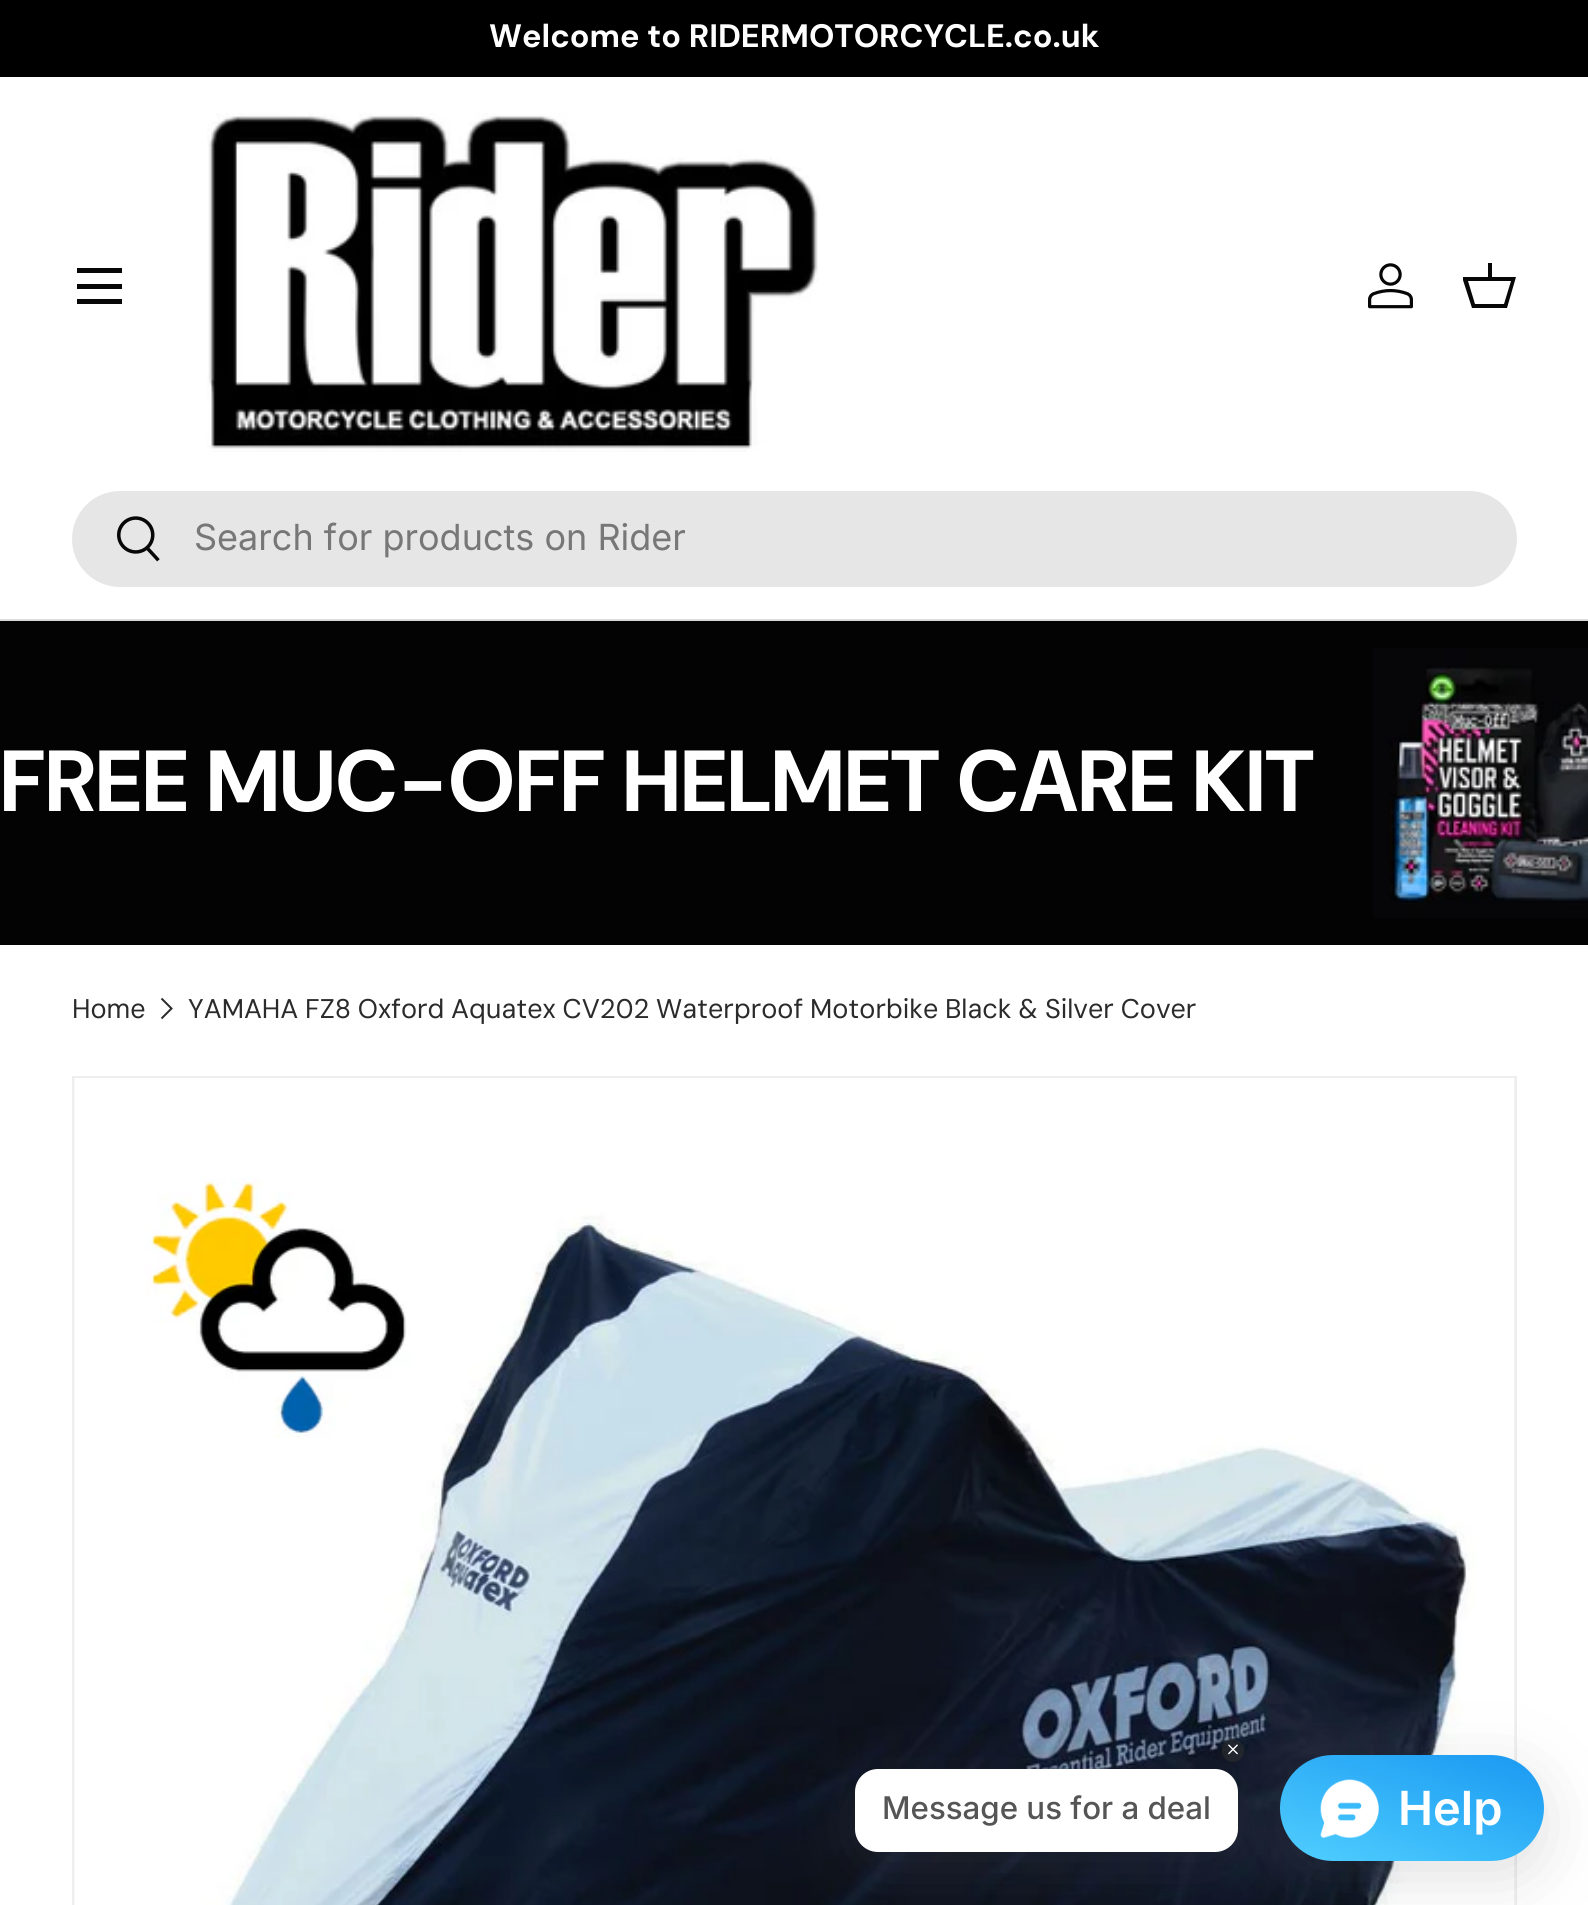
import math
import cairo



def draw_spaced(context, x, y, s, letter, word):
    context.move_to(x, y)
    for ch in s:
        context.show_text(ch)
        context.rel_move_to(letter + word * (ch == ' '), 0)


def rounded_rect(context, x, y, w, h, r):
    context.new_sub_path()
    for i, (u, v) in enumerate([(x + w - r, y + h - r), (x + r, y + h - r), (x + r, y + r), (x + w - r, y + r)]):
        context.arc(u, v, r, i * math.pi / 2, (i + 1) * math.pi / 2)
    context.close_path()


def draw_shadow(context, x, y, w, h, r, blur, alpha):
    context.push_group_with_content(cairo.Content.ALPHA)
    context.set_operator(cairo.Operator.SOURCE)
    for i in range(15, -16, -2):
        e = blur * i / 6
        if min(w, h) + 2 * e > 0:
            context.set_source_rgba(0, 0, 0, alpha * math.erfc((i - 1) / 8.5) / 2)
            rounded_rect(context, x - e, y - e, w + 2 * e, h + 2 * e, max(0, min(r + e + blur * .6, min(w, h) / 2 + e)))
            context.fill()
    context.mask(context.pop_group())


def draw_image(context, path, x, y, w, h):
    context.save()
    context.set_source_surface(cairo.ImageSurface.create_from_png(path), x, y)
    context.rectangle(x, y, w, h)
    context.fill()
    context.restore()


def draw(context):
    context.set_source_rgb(1, 1, 1)
    context.paint()
    context.set_source_rgb(0, 0, 0)
    context.rectangle(0, 0, 1588, 77)
    context.fill()
    context.set_source_rgb(218 / 255, 218 / 255, 218 / 255)
    context.rectangle(0, 619, 1588, 2)
    context.fill()
    context.set_source_rgb(7 / 255, 7 / 255, 7 / 255)
    context.rectangle(77, 268, 45, 5)
    context.fill()
    context.rectangle(77, 299, 45, 5)
    context.fill()
    context.rectangle(77, 284, 45, 5)
    context.fill()
    draw_image(context, "images/1.png", 207, 113, 612, 339)
    draw_image(context, "images/2.png", 1368, 263, 45, 46)
    context.save()
    context.rectangle(1463, 259, 54, 54)
    context.clip()
    context.new_path()
    context.move_to(1488, 277)
    context.line_to(1488, 263)
    context.line_to(1492, 263)
    context.line_to(1492, 277)
    context.line_to(1516, 277)
    context.line_to(1507, 308)
    context.line_to(1472, 308)
    context.line_to(1462, 277)
    context.close_path()
    context.move_to(1468, 281)
    context.line_to(1475, 304)
    context.line_to(1504, 304)
    context.line_to(1511, 281)
    context.close_path()
    context.fill()
    context.restore()
    context.set_source_rgb(230 / 255, 230 / 255, 230 / 255)
    rounded_rect(context, 72, 491, 1445, 96, 48)
    context.fill()
    draw_image(context, "images/3.png", 117, 516, 43, 46)
    context.set_source_rgb(3 / 255, 3 / 255, 3 / 255)
    context.rectangle(0, 621, 1588, 324)
    context.fill()
    draw_image(context, "images/4.png", 1373, 648, 215, 270)
    context.new_path()
    context.move_to(161.5, 998.5)
    context.line_to(171.5, 1008.5)
    context.line_to(161.5, 1018.5)
    context.set_source_rgb(42 / 255, 43 / 255, 42 / 255)
    context.stroke()
    context.set_source_rgb(244 / 255, 244 / 255, 244 / 255)
    context.rectangle(73, 1077, 1443, 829)
    context.fill_preserve()
    context.set_source_rgb(238 / 255, 238 / 255, 238 / 255)
    context.stroke()
    draw_image(context, "images/5.png", 74, 1078, 1440, 827)
    context.set_source_rgb(100 / 255, 100 / 255, 111 / 255)
    draw_shadow(context, 1280, 1771, 264, 106, 53, 32.5, 0.2)
    gradient = cairo.LinearGradient(1442, 1720, 1382, 1896)
    gradient.add_color_stop_rgba(0, 25 / 255, 152 / 255, 242 / 255, 1)
    gradient.add_color_stop_rgba(1, 80 / 255, 207 / 255, 1, 1)
    context.set_source(gradient)
    rounded_rect(context, 1280, 1755, 264, 106, 53)
    context.fill()
    context.new_path()
    context.move_to(1412, 1755)
    context.curve_to(1484.5, 1755, 1543.5, 1778.5, 1543.5, 1808)
    context.curve_to(1543.5, 1837.5, 1484.5, 1861, 1412, 1861)
    context.curve_to(1339.5, 1861, 1280.5, 1837.5, 1280.5, 1808)
    context.curve_to(1280.5, 1778.5, 1339.5, 1755, 1412, 1755)
    context.close_path()
    context.fill()
    draw_image(context, "images/7.png", 1320, 1779, 59, 59)
    context.set_source_rgb(100 / 255, 100 / 255, 111 / 255)
    draw_shadow(context, 855, 1784, 383, 84, 23, 32.5, 0.2)
    context.set_source_rgb(1, 1, 1)
    rounded_rect(context, 855, 1769, 383, 83, 23)
    context.fill()
    context.set_source_rgba(48 / 255, 48 / 255, 48 / 255, 0.55)
    rounded_rect(context, 1222, 1739, 22, 23, 11)
    context.fill()
    draw_image(context, "images/6.png", 1228, 1744, 10, 11)
    context.select_font_face("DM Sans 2", cairo.FontSlant.NORMAL, cairo.FontWeight.BOLD)
    context.set_font_size(32.4)
    context.set_source_rgb(1, 1, 1)
    context.move_to(489, 47)
    context.show_text("Welcome to RIDERMOTORCYCLE.co.uk")
    context.select_font_face("Inter")
    context.set_font_size(36)
    context.set_source_rgb(119 / 255, 119 / 255, 119 / 255)
    context.move_to(194, 550)
    context.show_text("Search for products on Rider")
    context.select_font_face("DM Sans", cairo.FontSlant.NORMAL, cairo.FontWeight.BOLD)
    context.set_font_size(86.5)
    context.set_source_rgb(1, 1, 1)
    context.move_to(0, 811)
    context.show_text("FREE MUC-OFF HELMET CARE KIT")
    context.select_font_face("DM Sans")
    context.set_font_size(27)
    context.set_source_rgb(42 / 255, 43 / 255, 42 / 255)
    context.move_to(72, 1018)
    context.show_text("Home")
    draw_spaced(context, 188, 1018, "YAMAHA FZ8 Oxford Aquatex CV202 Waterproof Motorbike Black & Silver Cover", 0, -0.5)
    context.select_font_face("Inter Medium")
    context.set_font_size(31.25)
    context.set_source_rgb(85 / 255, 85 / 255, 85 / 255)
    context.move_to(882, 1819)
    context.show_text("Message us for a deal")
    context.select_font_face("Inter SemiBold")
    context.set_font_size(47)
    context.set_source_rgb(1, 1, 1)
    context.move_to(1398, 1825)
    context.show_text("Help")


surface = cairo.ImageSurface(cairo.Format.RGB24, 1588, 1905)
context = cairo.Context(surface)
options = cairo.FontOptions()
options.set_hint_metrics(cairo.HintMetrics.OFF)
options.set_hint_style(cairo.HintStyle.NONE)
context.set_font_options(options)
context.set_miter_limit(4)
draw(context)
surface.write_to_png("out.png")
